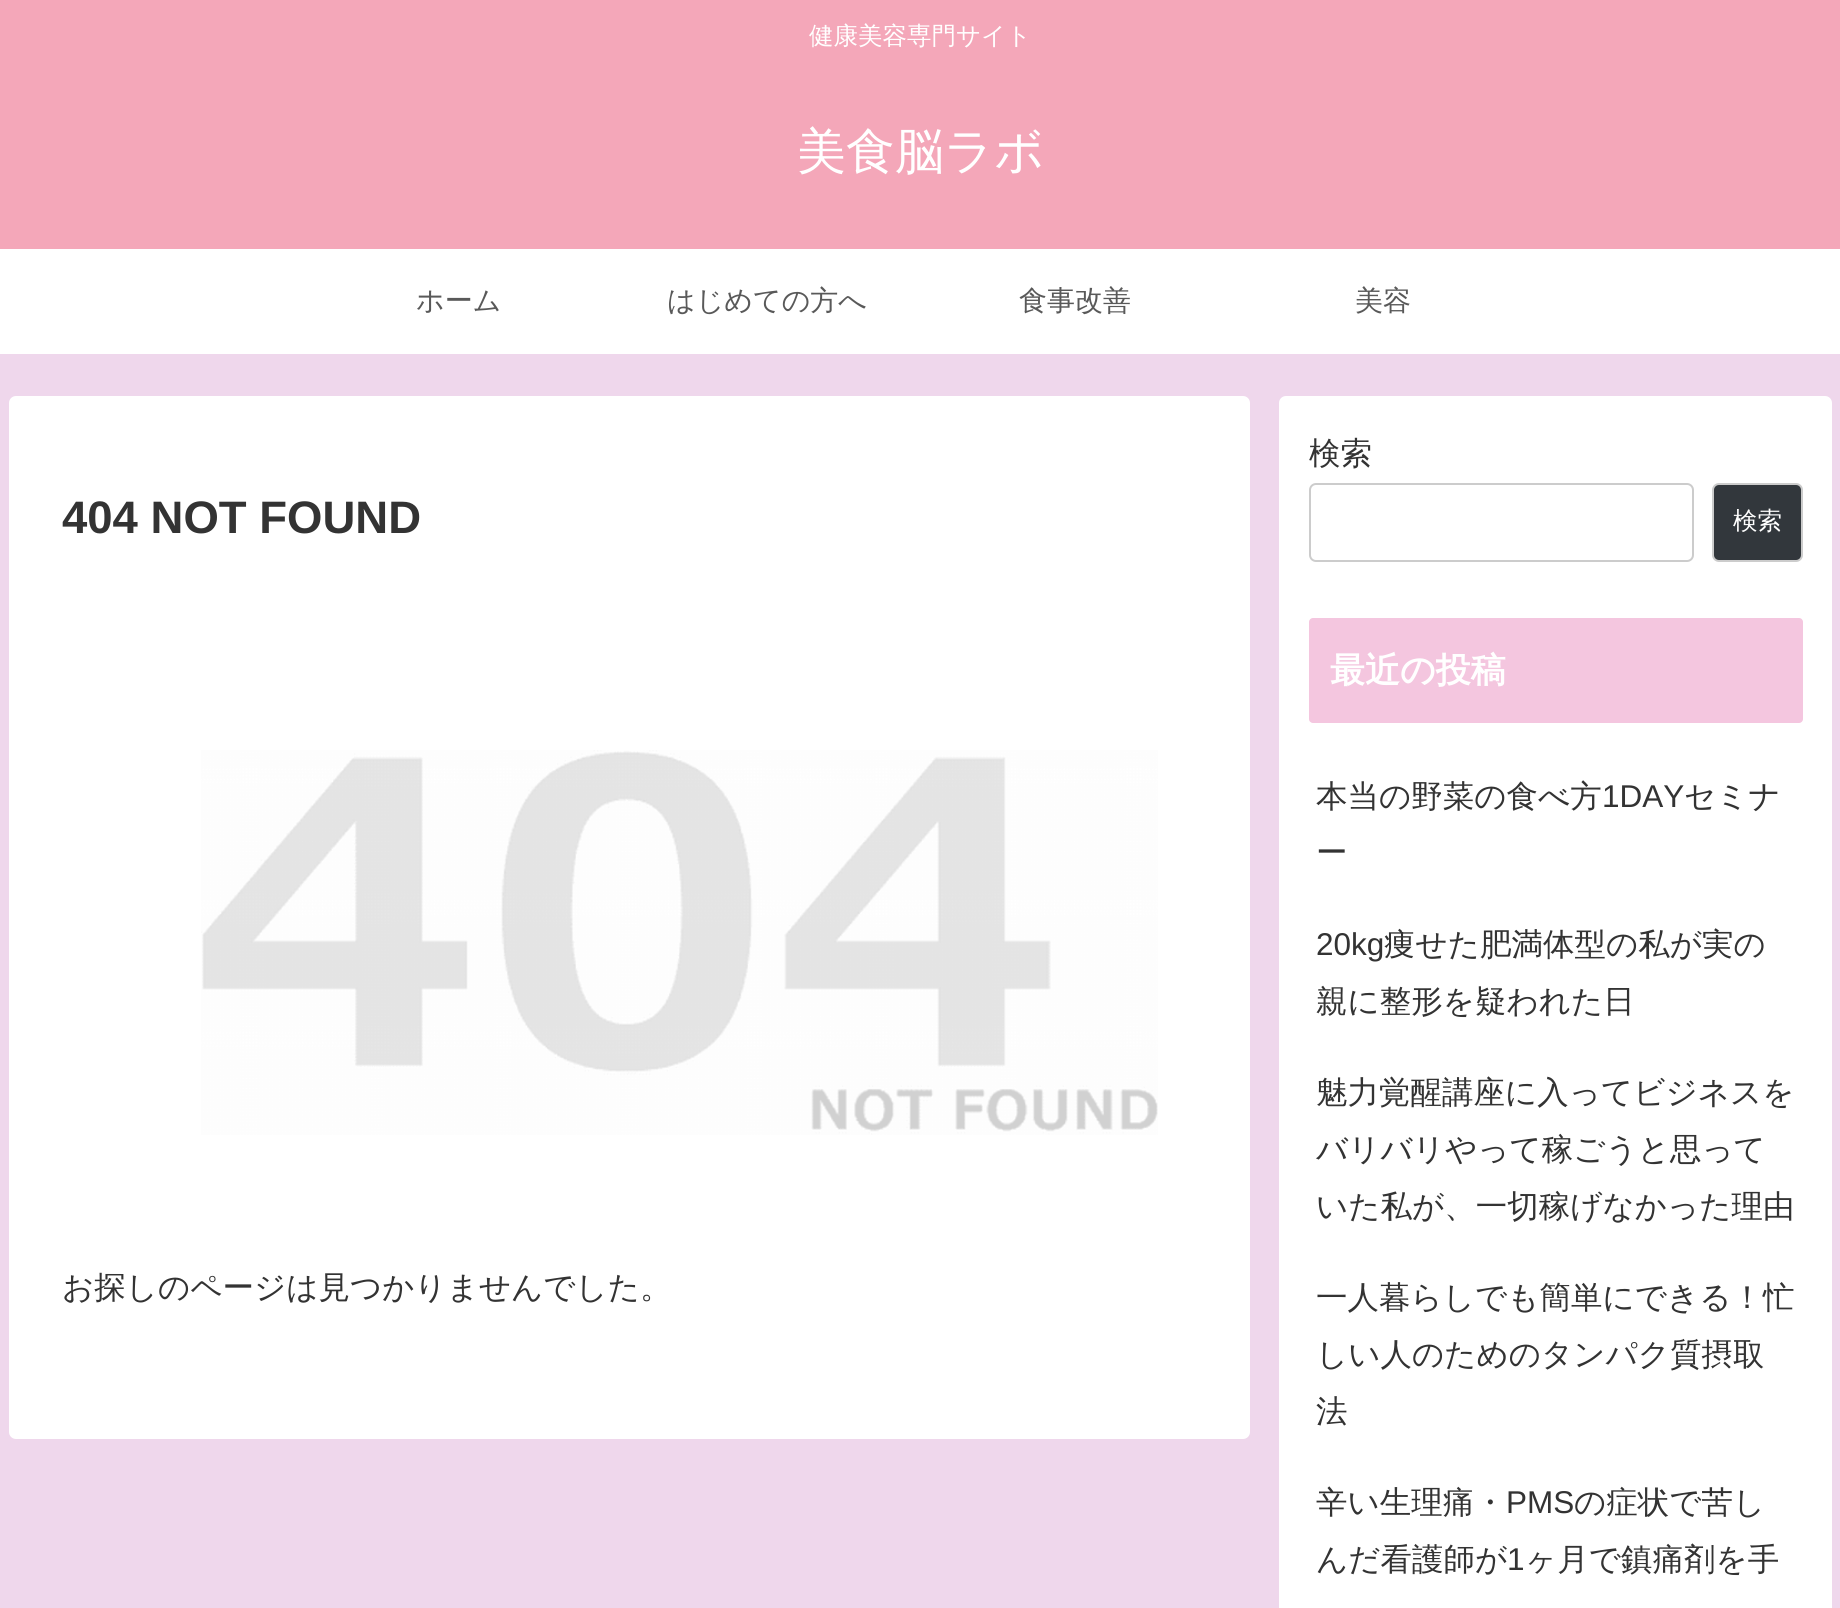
import math
import cairo



def rounded_rect(context, x, y, w, h, r):
    context.new_sub_path()
    for i, (u, v) in enumerate([(x + w - r, y + h - r), (x + r, y + h - r), (x + r, y + r), (x + w - r, y + r)]):
        context.arc(u, v, r, i * math.pi / 2, (i + 1) * math.pi / 2)
    context.close_path()


def draw_image(context, path, x, y, w, h):
    context.save()
    context.set_source_surface(cairo.ImageSurface.create_from_png(path), x, y)
    context.rectangle(x, y, w, h)
    context.fill()
    context.restore()


def draw(context):
    context.set_source_rgb(239 / 255, 215 / 255, 236 / 255)
    context.paint()
    context.set_source_rgb(244 / 255, 167 / 255, 185 / 255)
    context.rectangle(0, 0, 1840, 249)
    context.fill()
    context.set_source_rgb(1, 1, 1)
    context.rectangle(0, 249, 1840, 105)
    context.fill()
    rounded_rect(context, 9, 396, 1241, 1043, 7)
    context.fill()
    draw_image(context, "images/1.png", 201, 750, 957, 385)
    rounded_rect(context, 1279, 396, 553, 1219, 7)
    context.fill()
    rounded_rect(context, 1310, 484, 383, 77, 6)
    context.set_source_rgb(204 / 255, 204 / 255, 204 / 255)
    context.stroke()
    context.set_source_rgb(50 / 255, 55 / 255, 60 / 255)
    rounded_rect(context, 1713, 484, 89, 77, 6)
    context.fill_preserve()
    context.set_source_rgb(204 / 255, 204 / 255, 204 / 255)
    context.stroke()
    context.set_source_rgb(244 / 255, 198 / 255, 223 / 255)
    rounded_rect(context, 1309, 618, 494, 105, 4)
    context.fill()
    context.select_font_face("WenQuanYi Zen Hei Medium")
    context.set_font_size(24.5)
    context.set_source_rgb(1, 1, 1)
    context.move_to(809, 44)
    context.show_text("健康美容専門サイト")
    context.set_font_size(49)
    context.move_to(797, 168)
    context.show_text("美食脳ラボ")
    context.set_font_size(28)
    context.set_source_rgb(89 / 255, 89 / 255, 89 / 255)
    context.move_to(416, 310)
    context.show_text("ホーム")
    context.move_to(667, 310)
    context.show_text("はじめての方へ")
    context.move_to(1019, 310)
    context.show_text("食事改善")
    context.move_to(1355, 310)
    context.show_text("美容")
    context.select_font_face("Liberation Sans", cairo.FontSlant.NORMAL, cairo.FontWeight.BOLD)
    context.set_font_size(45.5)
    context.set_source_rgb(51 / 255, 51 / 255, 51 / 255)
    context.move_to(62, 533)
    context.show_text("404 NOT FOUND")
    context.select_font_face("WenQuanYi Zen Hei Medium")
    context.set_font_size(31.5)
    context.move_to(62, 1298)
    context.show_text("お探しのページは見つかりませんでした。")
    context.move_to(1309, 464)
    context.show_text("検索")
    context.set_font_size(24.5)
    context.set_source_rgb(1, 1, 1)
    context.move_to(1733, 529)
    context.show_text("検索")
    context.select_font_face("WenQuanYi Zen Hei", cairo.FontSlant.NORMAL, cairo.FontWeight.BOLD)
    context.set_font_size(35)
    context.move_to(1330, 682)
    context.show_text("最近の投稿")
    context.select_font_face("WenQuanYi Zen Hei Medium")
    context.set_font_size(31.5)
    context.set_source_rgb(51 / 255, 51 / 255, 51 / 255)
    context.move_to(1316, 807)
    context.show_text("本当の野菜の食べ方")
    context.select_font_face("Liberation Sans")
    context.move_to(1602, 807)
    context.show_text("1DAY")
    context.select_font_face("WenQuanYi Zen Hei Medium")
    context.move_to(1684, 807)
    context.show_text("セミナ")
    context.move_to(1316, 863)
    context.show_text("ー")
    context.select_font_face("Liberation Sans")
    context.move_to(1316, 955)
    context.show_text("20kg")
    context.select_font_face("WenQuanYi Zen Hei Medium")
    context.move_to(1384, 955)
    context.show_text("痩せた肥満体型の私が実の")
    context.move_to(1316, 1012)
    context.show_text("親に整形を疑われた日")
    context.move_to(1316, 1103)
    context.show_text("魅力覚醒講座に入ってビジネスを")
    context.move_to(1316, 1160)
    context.show_text("バリバリやって稼ごうと思って")
    context.move_to(1316, 1217)
    context.show_text("いた私が、一切稼げなかった理由")
    context.move_to(1316, 1308)
    context.show_text("一人暮らしでも簡単にできる！忙")
    context.move_to(1316, 1365)
    context.show_text("しい人のためのタンパク質摂取")
    context.move_to(1316, 1422)
    context.show_text("法")
    context.move_to(1316, 1513)
    context.show_text("辛い生理痛・")
    context.select_font_face("Liberation Sans")
    context.move_to(1506, 1513)
    context.show_text("PMS")
    context.select_font_face("WenQuanYi Zen Hei Medium")
    context.move_to(1574, 1513)
    context.show_text("の症状で苦し")
    context.move_to(1316, 1570)
    context.show_text("んだ看護師が")
    context.select_font_face("Liberation Sans")
    context.move_to(1507, 1570)
    context.show_text("1")
    context.select_font_face("WenQuanYi Zen Hei Medium")
    context.move_to(1525, 1570)
    context.show_text("ヶ月で鎮痛剤を手")


surface = cairo.ImageSurface(cairo.Format.RGB24, 1840, 1608)
context = cairo.Context(surface)
options = cairo.FontOptions()
options.set_hint_metrics(cairo.HintMetrics.OFF)
options.set_hint_style(cairo.HintStyle.NONE)
context.set_font_options(options)
context.set_miter_limit(4)
draw(context)
surface.write_to_png("out.png")
